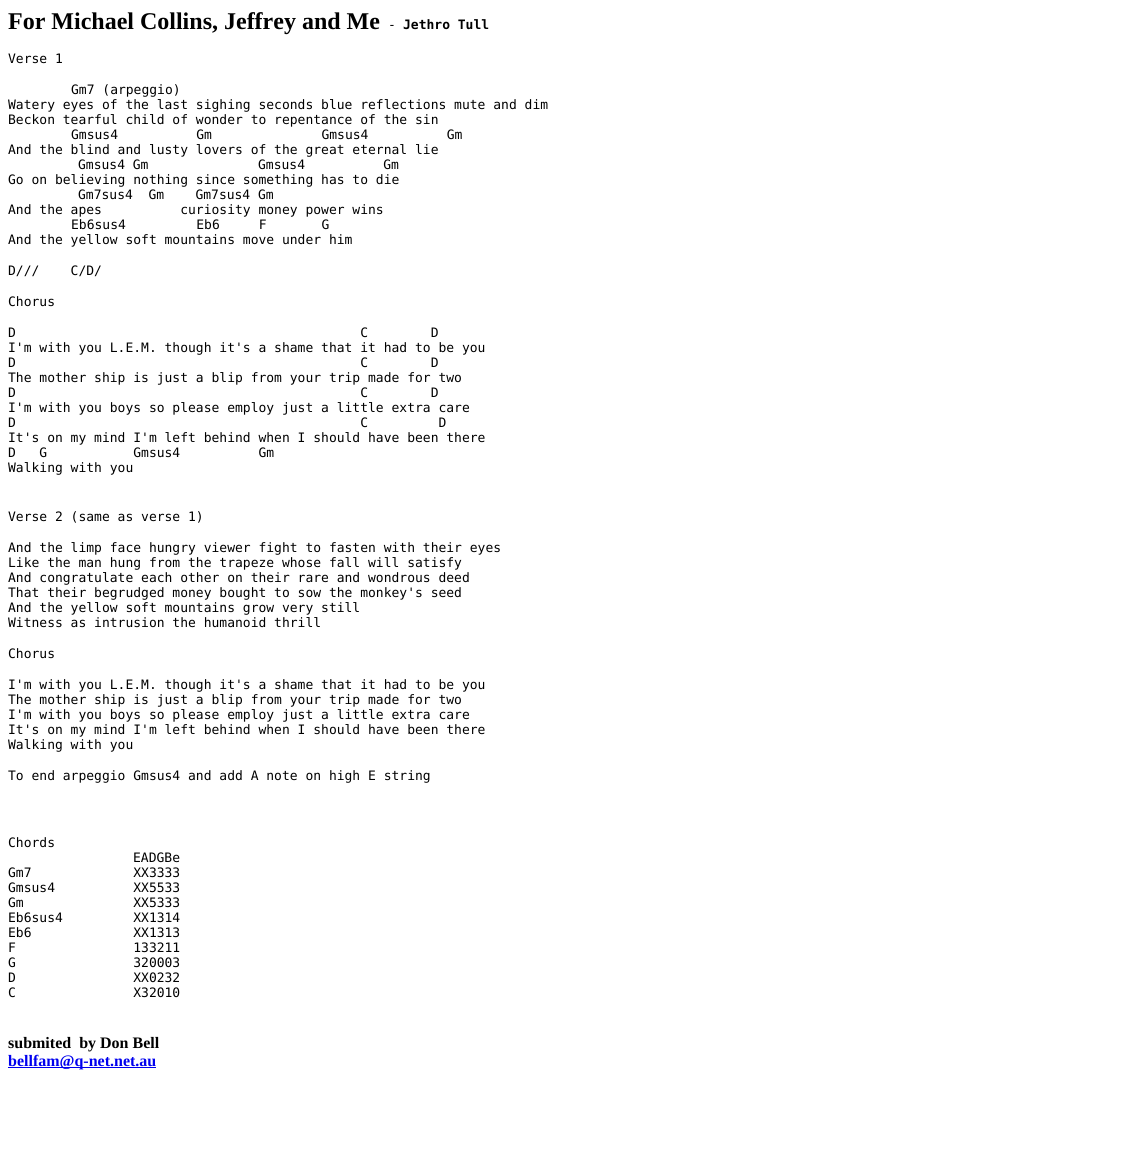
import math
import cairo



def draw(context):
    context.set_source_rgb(1, 1, 1)
    context.paint()
    context.set_source_rgb(0, 0, 238 / 255)
    context.rectangle(8, 1067, 148, 1)
    context.fill()
    context.select_font_face("Liberation Serif", cairo.FontSlant.NORMAL, cairo.FontWeight.BOLD)
    context.set_font_size(24)
    context.set_source_rgb(0, 0, 0)
    context.move_to(8, 29)
    context.show_text("For Michael Collins, Jeffrey and Me")
    context.select_font_face("DejaVu Sans Mono")
    context.set_font_size(13)
    context.move_to(388, 29)
    context.show_text("-")
    context.select_font_face("DejaVu Sans Mono", cairo.FontSlant.NORMAL, cairo.FontWeight.BOLD)
    context.move_to(403, 29)
    context.show_text("Jethro Tull")
    context.select_font_face("DejaVu Sans Mono")
    context.move_to(8, 63)
    context.show_text("Verse 1")
    context.move_to(71, 94)
    context.show_text("Gm7 (arpeggio)")
    context.move_to(8, 109)
    context.show_text("Watery eyes of the last sighing seconds blue reflections mute and dim")
    context.move_to(8, 124)
    context.show_text("Beckon tearful child of wonder to repentance of the sin")
    context.move_to(71, 139)
    context.show_text("Gmsus4          Gm              Gmsus4          Gm")
    context.move_to(8, 154)
    context.show_text("And the blind and lusty lovers of the great eternal lie")
    context.move_to(78, 169)
    context.show_text("Gmsus4 Gm              Gmsus4          Gm")
    context.move_to(8, 184)
    context.show_text("Go on believing nothing since something has to die")
    context.move_to(78, 199)
    context.show_text("Gm7sus4  Gm    Gm7sus4 Gm")
    context.move_to(8, 214)
    context.show_text("And the apes          curiosity money power wins")
    context.move_to(71, 229)
    context.show_text("Eb6sus4         Eb6     F       G")
    context.move_to(8, 244)
    context.show_text("And the yellow soft mountains move under him")
    context.move_to(8, 275)
    context.show_text("D///    C/D/")
    context.move_to(8, 306)
    context.show_text("Chorus")
    context.move_to(8, 337)
    context.show_text("D                                            C        D")
    context.move_to(8, 352)
    context.show_text("I'm with you L.E.M. though it's a shame that it had to be you")
    context.move_to(8, 367)
    context.show_text("D                                            C        D")
    context.move_to(8, 382)
    context.show_text("The mother ship is just a blip from your trip made for two")
    context.move_to(8, 397)
    context.show_text("D                                            C        D")
    context.move_to(8, 412)
    context.show_text("I'm with you boys so please employ just a little extra care")
    context.move_to(8, 427)
    context.show_text("D                                            C         D")
    context.move_to(8, 442)
    context.show_text("It's on my mind I'm left behind when I should have been there")
    context.move_to(8, 457)
    context.show_text("D   G           Gmsus4          Gm")
    context.move_to(8, 472)
    context.show_text("Walking with you")
    context.move_to(8, 521)
    context.show_text("Verse 2 (same as verse 1)")
    context.move_to(8, 552)
    context.show_text("And the limp face hungry viewer fight to fasten with their eyes")
    context.move_to(8, 567)
    context.show_text("Like the man hung from the trapeze whose fall will satisfy")
    context.move_to(8, 582)
    context.show_text("And congratulate each other on their rare and wondrous deed")
    context.move_to(8, 597)
    context.show_text("That their begrudged money bought to sow the monkey's seed")
    context.move_to(8, 612)
    context.show_text("And the yellow soft mountains grow very still")
    context.move_to(8, 627)
    context.show_text("Witness as intrusion the humanoid thrill")
    context.move_to(8, 658)
    context.show_text("Chorus")
    context.move_to(8, 689)
    context.show_text("I'm with you L.E.M. though it's a shame that it had to be you")
    context.move_to(8, 704)
    context.show_text("The mother ship is just a blip from your trip made for two")
    context.move_to(8, 719)
    context.show_text("I'm with you boys so please employ just a little extra care")
    context.move_to(8, 734)
    context.show_text("It's on my mind I'm left behind when I should have been there")
    context.move_to(8, 749)
    context.show_text("Walking with you")
    context.move_to(8, 780)
    context.show_text("To end arpeggio Gmsus4 and add A note on high E string")
    context.move_to(8, 847)
    context.show_text("Chords")
    context.move_to(133, 862)
    context.show_text("EADGBe")
    context.move_to(8, 877)
    context.show_text("Gm7             XX3333")
    context.move_to(8, 892)
    context.show_text("Gmsus4          XX5533")
    context.move_to(8, 907)
    context.show_text("Gm              XX5333")
    context.move_to(8, 922)
    context.show_text("Eb6sus4         XX1314")
    context.move_to(8, 937)
    context.show_text("Eb6             XX1313")
    context.move_to(8, 952)
    context.show_text("F               133211")
    context.move_to(8, 967)
    context.show_text("G               320003")
    context.move_to(8, 982)
    context.show_text("D               XX0232")
    context.move_to(8, 997)
    context.show_text("C               X32010")
    context.select_font_face("Liberation Serif", cairo.FontSlant.NORMAL, cairo.FontWeight.BOLD)
    context.set_font_size(16)
    context.move_to(8, 1048)
    context.show_text("submited  by Don Bell")
    context.set_source_rgb(0, 0, 238 / 255)
    context.move_to(8, 1066)
    context.show_text("bellfam@q-net.net.au")


surface = cairo.ImageSurface(cairo.Format.RGB24, 1128, 1174)
context = cairo.Context(surface)
options = cairo.FontOptions()
options.set_hint_metrics(cairo.HintMetrics.OFF)
options.set_hint_style(cairo.HintStyle.NONE)
context.set_font_options(options)
context.set_miter_limit(4)
draw(context)
surface.write_to_png("out.png")
